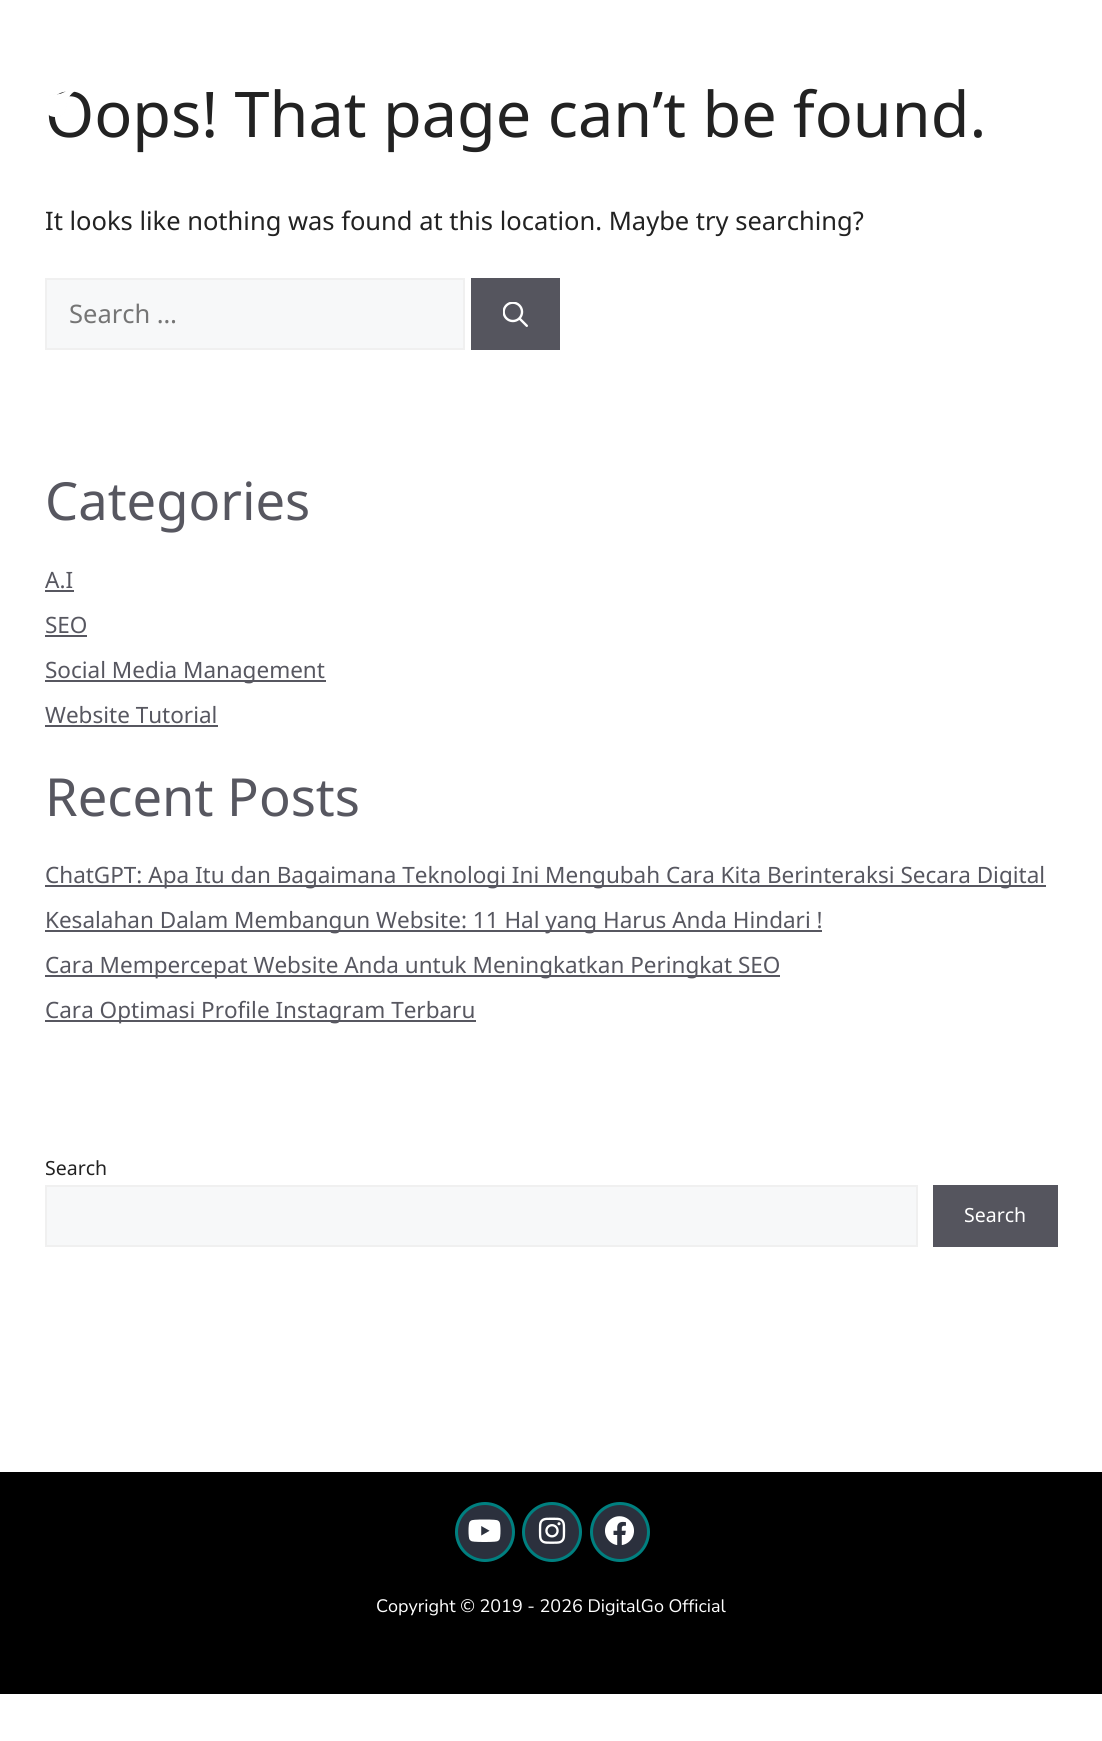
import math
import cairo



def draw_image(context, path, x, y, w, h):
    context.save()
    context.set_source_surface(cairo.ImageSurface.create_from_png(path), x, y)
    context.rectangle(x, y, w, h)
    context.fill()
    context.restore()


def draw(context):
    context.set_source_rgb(1, 1, 1)
    context.paint()
    context.set_source_rgb(247 / 255, 248 / 255, 249 / 255)
    context.rectangle(46, 279, 418, 70)
    context.fill_preserve()
    context.set_source_rgb(240 / 255, 240 / 255, 240 / 255)
    context.stroke()
    context.set_source_rgb(85 / 255, 85 / 255, 94 / 255)
    context.rectangle(471, 278, 89, 72)
    context.fill()
    draw_image(context, "images/1.png", 503, 302, 25, 25)
    context.set_source_rgb(87 / 255, 87 / 255, 96 / 255)
    context.rectangle(45, 590, 29, 2)
    context.fill()
    context.rectangle(45, 635, 42, 2)
    context.fill()
    context.rectangle(45, 680, 281, 2)
    context.fill()
    context.rectangle(45, 725, 173, 2)
    context.fill()
    context.rectangle(45, 885, 1001, 2)
    context.fill()
    context.rectangle(45, 930, 777, 2)
    context.fill()
    context.rectangle(45, 975, 735, 2)
    context.fill()
    context.rectangle(45, 1020, 431, 2)
    context.fill()
    context.set_source_rgb(247 / 255, 248 / 255, 249 / 255)
    context.rectangle(46, 1186, 871, 60)
    context.fill_preserve()
    context.set_source_rgb(240 / 255, 240 / 255, 240 / 255)
    context.stroke()
    context.set_source_rgb(85 / 255, 85 / 255, 94 / 255)
    context.rectangle(933, 1185, 125, 62)
    context.fill()
    context.set_source_rgb(0, 0, 0)
    context.rectangle(0, 1472, 1102, 222)
    context.fill()
    context.set_source_rgb(43 / 255, 48 / 255, 61 / 255)
    context.arc(485, 1532, 28.5, 0, 2 * math.pi)
    context.fill_preserve()
    context.set_source_rgb(0, 128 / 255, 128 / 255)
    context.set_line_width(3)
    context.stroke()
    draw_image(context, "images/3.png", 468, 1519, 33, 23)
    context.set_source_rgb(43 / 255, 48 / 255, 61 / 255)
    context.arc(552, 1532, 28.5, 0, 2 * math.pi)
    context.fill_preserve()
    context.set_source_rgb(0, 128 / 255, 128 / 255)
    context.stroke()
    draw_image(context, "images/4.png", 538, 1517, 28, 27)
    context.set_source_rgb(43 / 255, 48 / 255, 61 / 255)
    context.arc(620, 1532, 28.5, 0, 2 * math.pi)
    context.fill_preserve()
    context.set_source_rgb(0, 128 / 255, 128 / 255)
    context.stroke()
    draw_image(context, "images/5.png", 605, 1516, 29, 29)
    context.select_font_face("Noto Sans")
    context.set_font_size(63)
    context.set_source_rgb(34 / 255, 34 / 255, 34 / 255)
    context.move_to(45, 137)
    context.show_text("Oops! That page can’t be found.")
    context.set_font_size(25.5)
    context.move_to(45, 230)
    context.show_text("It looks like nothing was found at this location. Maybe try searching?")
    context.set_source_rgb(117 / 255, 117 / 255, 117 / 255)
    context.move_to(69, 323)
    context.show_text("Search …")
    context.set_font_size(52.5)
    context.set_source_rgb(87 / 255, 87 / 255, 96 / 255)
    context.move_to(45, 520)
    context.show_text("Categories")
    context.set_font_size(22.5)
    context.move_to(45, 588)
    context.show_text("A.I")
    context.move_to(45, 633)
    context.show_text("SEO")
    context.move_to(45, 678)
    context.show_text("Social Media Management")
    context.move_to(45, 723)
    context.show_text("Website Tutorial")
    context.set_font_size(52.5)
    context.move_to(45, 816)
    context.show_text("Recent Posts")
    context.set_font_size(22.5)
    context.move_to(45, 883)
    context.show_text("ChatGPT: Apa Itu dan Bagaimana Teknologi Ini Mengubah Cara Kita Berinteraksi Secara Digital")
    context.move_to(45, 928)
    context.show_text("Kesalahan Dalam Membangun Website: 11 Hal yang Harus Anda Hindari !")
    context.move_to(45, 973)
    context.show_text("Cara Mempercepat Website Anda untuk Meningkatkan Peringkat SEO")
    context.move_to(45, 1018)
    context.show_text("Cara Optimasi Profile Instagram Terbaru")
    context.set_font_size(19.5)
    context.set_source_rgb(34 / 255, 34 / 255, 34 / 255)
    context.move_to(45, 1175)
    context.show_text("Search")
    context.set_source_rgb(1, 1, 1)
    context.move_to(964, 1222)
    context.show_text("Search")
    draw_image(context, "images/2.png", 48, 91, 27, 26)
    context.select_font_face("Nunito Sans")
    context.set_font_size(18)
    context.move_to(376, 1612)
    context.show_text("Copyright © 2019 - 2026 DigitalGo Official")


surface = cairo.ImageSurface(cairo.Format.RGB24, 1102, 1741)
context = cairo.Context(surface)
options = cairo.FontOptions()
options.set_hint_metrics(cairo.HintMetrics.OFF)
options.set_hint_style(cairo.HintStyle.NONE)
context.set_font_options(options)
context.set_miter_limit(4)
draw(context)
surface.write_to_png("out.png")
